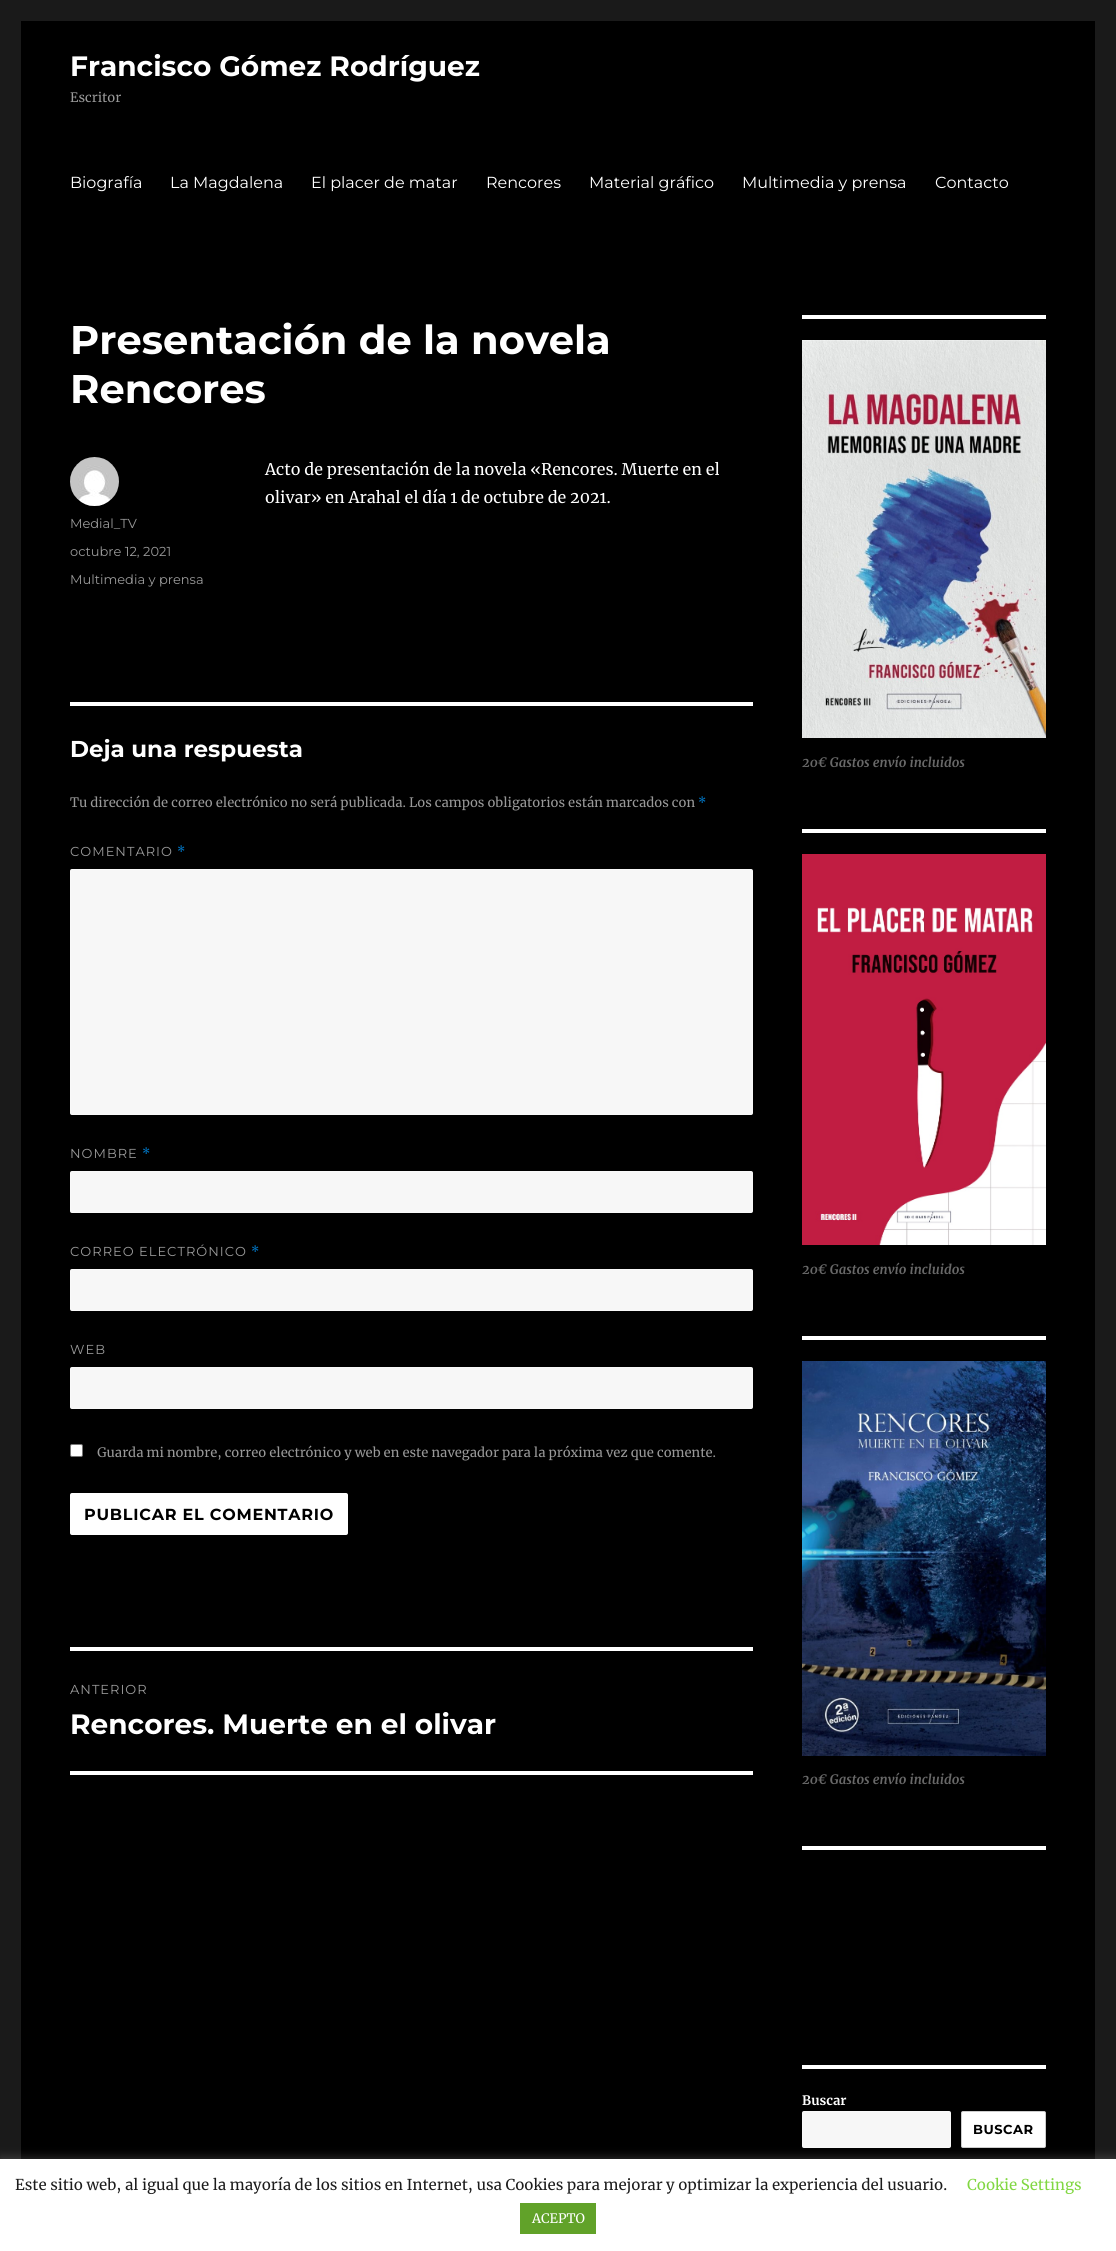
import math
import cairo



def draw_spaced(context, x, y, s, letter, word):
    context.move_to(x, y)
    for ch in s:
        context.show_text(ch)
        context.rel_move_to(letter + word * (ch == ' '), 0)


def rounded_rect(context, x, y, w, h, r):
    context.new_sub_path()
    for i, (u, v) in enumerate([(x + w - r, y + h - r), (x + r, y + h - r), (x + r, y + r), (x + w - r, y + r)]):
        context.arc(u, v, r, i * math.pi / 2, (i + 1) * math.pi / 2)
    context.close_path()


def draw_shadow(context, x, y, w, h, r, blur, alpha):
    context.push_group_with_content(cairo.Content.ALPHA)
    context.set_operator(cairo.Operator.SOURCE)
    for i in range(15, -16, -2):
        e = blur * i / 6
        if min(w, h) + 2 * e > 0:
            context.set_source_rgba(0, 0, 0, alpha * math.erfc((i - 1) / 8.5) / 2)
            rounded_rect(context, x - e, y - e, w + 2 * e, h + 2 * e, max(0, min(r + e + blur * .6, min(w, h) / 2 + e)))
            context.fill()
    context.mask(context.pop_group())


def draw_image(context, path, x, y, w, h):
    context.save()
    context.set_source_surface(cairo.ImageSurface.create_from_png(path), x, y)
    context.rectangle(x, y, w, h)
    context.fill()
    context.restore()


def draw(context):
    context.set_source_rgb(26 / 255, 26 / 255, 26 / 255)
    context.paint()
    context.set_source_rgb(0, 0, 0)
    context.rectangle(21, 21, 1074, 2138)
    context.fill()
    draw_image(context, "images/1.png", 70, 457, 49, 49)
    context.set_source_rgb(1, 1, 1)
    context.rectangle(70, 702, 683, 4)
    context.fill()
    context.set_source_rgb(247 / 255, 247 / 255, 247 / 255)
    rounded_rect(context, 70, 869, 683, 246, 2)
    context.fill()
    rounded_rect(context, 70.5, 869.5, 682, 245, 1.5)
    context.set_source_rgba(1, 1, 1, 0.2)
    context.set_line_width(1)
    context.stroke()
    context.set_source_rgb(247 / 255, 247 / 255, 247 / 255)
    rounded_rect(context, 70, 1171, 683, 42, 2)
    context.fill()
    rounded_rect(context, 70.5, 1171.5, 682, 41, 1.5)
    context.set_source_rgba(1, 1, 1, 0.2)
    context.stroke()
    context.set_source_rgb(247 / 255, 247 / 255, 247 / 255)
    rounded_rect(context, 70, 1269, 683, 42, 2)
    context.fill()
    rounded_rect(context, 70.5, 1269.5, 682, 41, 1.5)
    context.set_source_rgba(1, 1, 1, 0.2)
    context.stroke()
    context.set_source_rgb(247 / 255, 247 / 255, 247 / 255)
    rounded_rect(context, 70, 1367, 683, 42, 2)
    context.fill()
    rounded_rect(context, 70.5, 1367.5, 682, 41, 1.5)
    context.set_source_rgba(1, 1, 1, 0.2)
    context.stroke()
    context.set_source_rgb(1, 1, 1)
    rounded_rect(context, 70.5, 1444.5, 12, 12, 1.5)
    context.fill_preserve()
    context.set_source_rgb(118 / 255, 118 / 255, 118 / 255)
    context.stroke()
    context.set_source_rgb(1, 1, 1)
    rounded_rect(context, 70, 1493, 278, 42, 2)
    context.fill()
    context.rectangle(70, 1647, 683, 4)
    context.fill()
    context.rectangle(70, 1771, 683, 4)
    context.fill()
    context.rectangle(802, 315, 244, 4)
    context.fill()
    draw_image(context, "images/2.png", 802, 340, 244, 398)
    context.rectangle(802, 829, 244, 4)
    context.fill()
    draw_image(context, "images/3.png", 802, 854, 244, 391)
    context.rectangle(802, 1336, 244, 4)
    context.fill()
    draw_image(context, "images/4.png", 802, 1361, 244, 395)
    context.rectangle(802, 1846, 244, 4)
    context.fill()
    context.rectangle(802, 2065, 244, 4)
    context.fill()
    context.set_source_rgb(247 / 255, 247 / 255, 247 / 255)
    rounded_rect(context, 802, 2111, 149, 37, 2)
    context.fill()
    rounded_rect(context, 802.5, 2111.5, 148, 36, 1.5)
    context.set_source_rgba(1, 1, 1, 0.2)
    context.stroke()
    context.set_source_rgb(1, 1, 1)
    rounded_rect(context, 961.5, 2111.5, 84, 36, 1.5)
    context.fill_preserve()
    context.set_source_rgb(204 / 255, 204 / 255, 204 / 255)
    context.stroke()
    context.set_source_rgb(172 / 255, 171 / 255, 171 / 255)
    draw_shadow(context, 0, 2158, 1116, 92, 0, 5, 0.3)
    context.set_source_rgb(1, 1, 1)
    context.rectangle(0, 2159, 1116, 92)
    context.fill()
    context.set_source_rgb(97 / 255, 162 / 255, 41 / 255)
    context.rectangle(520, 2203, 76, 31)
    context.fill()
    context.select_font_face("Montserrat Thin")
    context.set_font_size(28)
    context.set_source_rgb(1, 1, 1)
    context.move_to(70, 76)
    context.show_text("Francisco Gómez Rodríguez")
    context.select_font_face("Merriweather")
    context.set_font_size(13)
    context.set_source_rgb(153 / 255, 153 / 255, 153 / 255)
    context.move_to(70, 102)
    context.show_text("Escritor")
    context.select_font_face("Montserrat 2 Thin")
    context.set_font_size(16)
    context.set_source_rgb(1, 1, 1)
    context.move_to(70, 188)
    context.show_text("Biografía")
    context.move_to(170, 188)
    context.show_text("La Magdalena")
    context.move_to(311, 188)
    context.show_text("El placer de matar")
    context.move_to(486, 188)
    context.show_text("Rencores")
    context.move_to(589, 188)
    context.show_text("Material gráfico")
    context.move_to(742, 188)
    context.show_text("Multimedia y prensa")
    context.move_to(935, 188)
    context.show_text("Contacto")
    context.select_font_face("Montserrat Thin")
    context.set_font_size(40)
    context.move_to(70, 354)
    context.show_text("Presentación de la novela")
    context.move_to(70, 403)
    context.show_text("Rencores")
    context.select_font_face("Merriweather")
    context.set_font_size(16)
    context.move_to(265, 475)
    context.show_text("Acto de presentación de la novela «Rencores. Muerte en el")
    context.move_to(265, 503)
    context.show_text("olivar» en Arahal el día 1 de octubre de 2021.")
    context.select_font_face("Montserrat 2 Thin")
    context.set_font_size(13)
    context.set_source_rgb(153 / 255, 153 / 255, 153 / 255)
    context.move_to(70, 528)
    context.show_text("Medial_TV")
    context.move_to(70, 556)
    context.show_text("octubre 12, 2021")
    context.move_to(70, 584)
    context.show_text("Multimedia y prensa")
    context.select_font_face("Montserrat Thin")
    context.set_font_size(23)
    context.set_source_rgb(1, 1, 1)
    context.move_to(70, 757)
    context.show_text("Deja una respuesta")
    context.select_font_face("Merriweather")
    context.set_font_size(13)
    context.set_source_rgb(153 / 255, 153 / 255, 153 / 255)
    context.move_to(70, 807)
    context.show_text("Tu dirección de correo electrónico no será publicada. Los campos obligatorios están marcados con")
    context.set_source_rgb(0, 122 / 255, 204 / 255)
    context.move_to(698, 807)
    context.show_text("*")
    context.select_font_face("Montserrat 2 Thin")
    context.set_source_rgb(153 / 255, 153 / 255, 153 / 255)
    draw_spaced(context, 70, 856, "COMENTARIO", 1, 0)
    context.select_font_face("Merriweather")
    context.set_source_rgb(0, 122 / 255, 204 / 255)
    draw_spaced(context, 177, 856, "*", 1, 0)
    context.select_font_face("Montserrat 2 Thin")
    context.set_source_rgb(153 / 255, 153 / 255, 153 / 255)
    draw_spaced(context, 70, 1158, "NOMBRE", 1, 0)
    context.select_font_face("Merriweather")
    context.set_source_rgb(0, 122 / 255, 204 / 255)
    draw_spaced(context, 142, 1158, "*", 1, 0)
    context.select_font_face("Montserrat 2 Thin")
    context.set_source_rgb(153 / 255, 153 / 255, 153 / 255)
    draw_spaced(context, 70, 1256, "CORREO ELECTRÓNICO", 1, 0)
    context.select_font_face("Merriweather")
    context.set_source_rgb(0, 122 / 255, 204 / 255)
    draw_spaced(context, 251, 1256, "*", 1, 0)
    context.select_font_face("Montserrat 2 Thin")
    context.set_source_rgb(153 / 255, 153 / 255, 153 / 255)
    draw_spaced(context, 70, 1354, "WEB", 1, 0)
    context.select_font_face("Merriweather")
    context.move_to(97, 1457)
    context.show_text("Guarda mi nombre, correo electrónico y web en este navegador para la próxima vez que comente.")
    context.select_font_face("Montserrat Thin")
    context.set_font_size(16)
    context.set_source_rgb(0, 0, 0)
    draw_spaced(context, 84, 1520, "PUBLICAR EL COMENTARIO", 0.75, 0)
    context.select_font_face("Montserrat 2 Thin")
    context.set_font_size(13)
    context.set_source_rgb(153 / 255, 153 / 255, 153 / 255)
    draw_spaced(context, 70, 1694, "ANTERIOR", 1, 0)
    context.select_font_face("Montserrat Thin")
    context.set_font_size(28)
    context.set_source_rgb(1, 1, 1)
    context.move_to(70, 1734)
    context.show_text("Rencores. Muerte en el olivar")
    context.select_font_face("Merriweather", cairo.FontSlant.ITALIC, cairo.FontWeight.BOLD)
    context.set_font_size(13)
    context.set_source_rgb(104 / 255, 104 / 255, 104 / 255)
    context.move_to(802, 767)
    context.show_text("20€ Gastos envío incluidos")
    context.move_to(802, 1274)
    context.show_text("20€ Gastos envío incluidos")
    context.move_to(802, 1784)
    context.show_text("20€ Gastos envío incluidos")
    context.select_font_face("Merriweather", cairo.FontSlant.NORMAL, cairo.FontWeight.BOLD)
    context.set_source_rgb(1, 1, 1)
    context.move_to(802, 2105)
    context.show_text("Buscar")
    context.select_font_face("Montserrat Thin")
    context.set_source_rgb(0, 0, 0)
    draw_spaced(context, 973, 2134, "BUSCAR", 0.5, 0)
    context.select_font_face("Merriweather")
    context.set_font_size(15)
    context.set_source_rgb(28 / 255, 28 / 255, 28 / 255)
    context.move_to(15, 2190)
    context.show_text("Este sitio web, al igual que la mayoría de los sitios en Internet, usa Cookies para mejorar y optimizar la experiencia del usuario.")
    context.set_source_rgb(129 / 255, 215 / 255, 66 / 255)
    context.move_to(967, 2190)
    context.show_text("Cookie Settings")
    context.set_font_size(13)
    context.set_source_rgb(1, 1, 1)
    context.move_to(532, 2223)
    context.show_text("ACEPTO")


surface = cairo.ImageSurface(cairo.Format.RGB24, 1116, 2251)
context = cairo.Context(surface)
options = cairo.FontOptions()
options.set_hint_metrics(cairo.HintMetrics.OFF)
options.set_hint_style(cairo.HintStyle.NONE)
context.set_font_options(options)
context.set_miter_limit(4)
draw(context)
surface.write_to_png("out.png")
